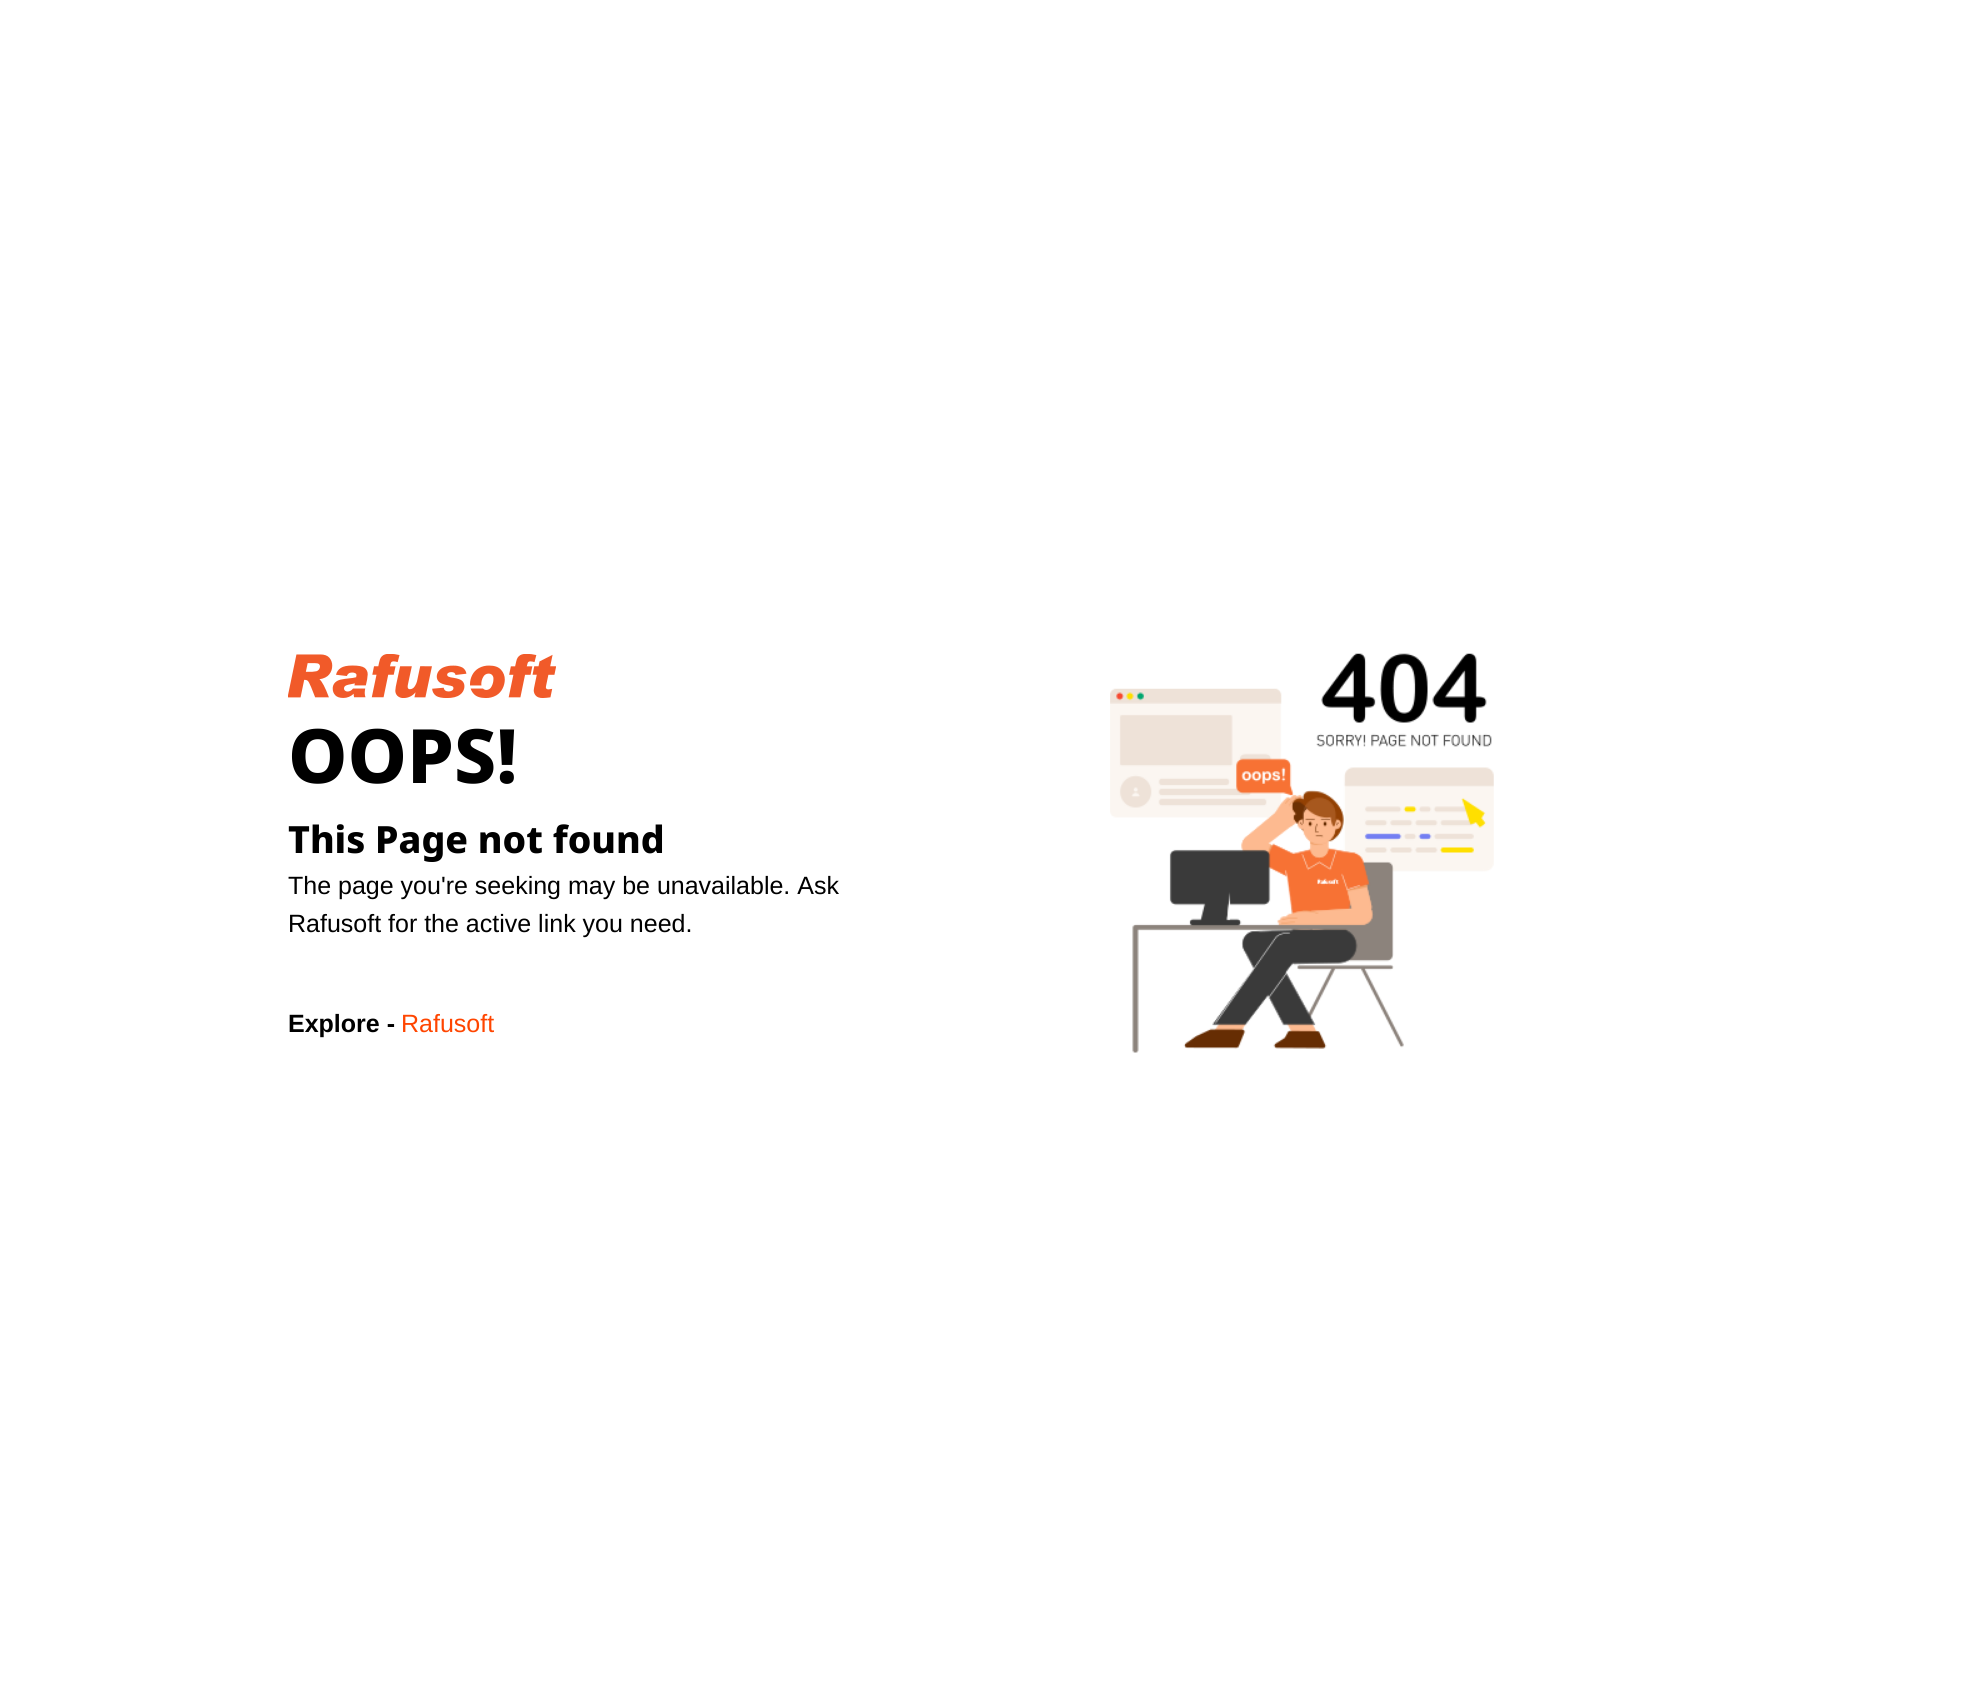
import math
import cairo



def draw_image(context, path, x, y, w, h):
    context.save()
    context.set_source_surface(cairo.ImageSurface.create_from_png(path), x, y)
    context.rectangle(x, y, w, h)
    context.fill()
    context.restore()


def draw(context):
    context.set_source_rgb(1, 1, 1)
    context.paint()
    draw_image(context, "images/1.png", 288, 654, 268, 44)
    draw_image(context, "images/2.png", 1110, 653, 384, 400)
    context.select_font_face("Noto Sans ExtraBold")
    context.set_font_size(75)
    context.set_source_rgb(0, 0, 0)
    context.move_to(288, 783)
    context.show_text("OOPS!")
    context.set_font_size(37.5)
    context.move_to(288, 853)
    context.show_text("This Page not found")
    context.select_font_face("Liberation Sans")
    context.set_font_size(25)
    context.move_to(288, 894)
    context.show_text("The page you're seeking may be unavailable. Ask")
    context.move_to(288, 932)
    context.show_text("Rafusoft for the active link you need.")
    context.select_font_face("Liberation Sans", cairo.FontSlant.NORMAL, cairo.FontWeight.BOLD)
    context.move_to(288, 1032)
    context.show_text("Explore -")
    context.select_font_face("Liberation Sans")
    context.set_source_rgb(1, 69 / 255, 0)
    context.move_to(401, 1032)
    context.show_text("Rafusoft")


surface = cairo.ImageSurface(cairo.Format.RGB24, 1964, 1706)
context = cairo.Context(surface)
options = cairo.FontOptions()
options.set_hint_metrics(cairo.HintMetrics.OFF)
options.set_hint_style(cairo.HintStyle.NONE)
context.set_font_options(options)
context.set_miter_limit(4)
draw(context)
surface.write_to_png("out.png")
